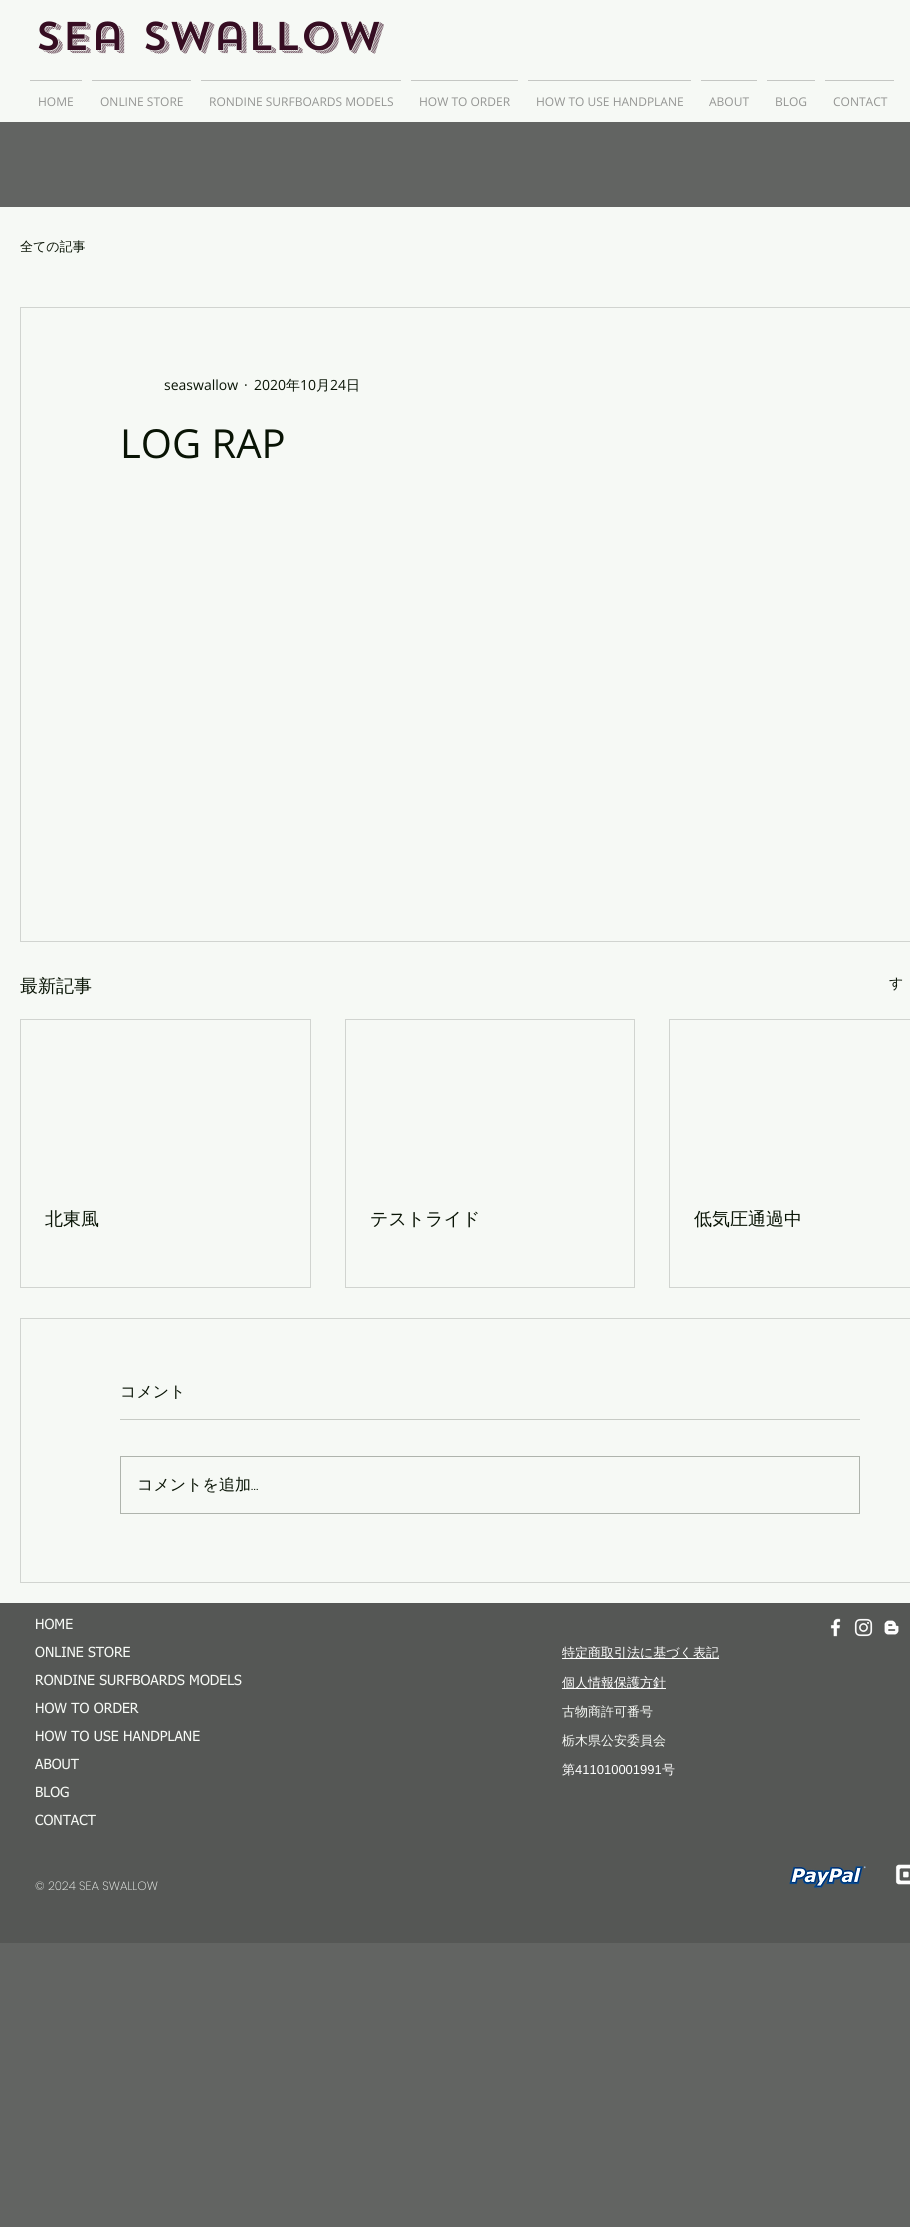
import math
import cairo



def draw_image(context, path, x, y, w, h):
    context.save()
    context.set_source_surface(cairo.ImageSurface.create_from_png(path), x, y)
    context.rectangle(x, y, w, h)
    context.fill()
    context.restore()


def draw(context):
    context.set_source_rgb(98 / 255, 100 / 255, 98 / 255)
    context.paint()
    context.set_source_rgb(246 / 255, 249 / 255, 245 / 255)
    context.rectangle(0, 0, 910, 122)
    context.fill()
    context.set_source_rgb(197 / 255, 199 / 255, 196 / 255)
    context.rectangle(30, 80, 52, 1)
    context.fill()
    context.rectangle(92, 80, 99, 1)
    context.fill()
    context.rectangle(201, 80, 200, 1)
    context.fill()
    context.rectangle(411, 80, 107, 1)
    context.fill()
    context.rectangle(528, 80, 163, 1)
    context.fill()
    context.rectangle(701, 80, 56, 1)
    context.fill()
    context.rectangle(767, 80, 48, 1)
    context.fill()
    context.rectangle(825, 80, 69, 1)
    context.fill()
    context.set_source_rgb(246 / 255, 249 / 255, 245 / 255)
    context.rectangle(0, 207, 910, 1396)
    context.fill()
    context.rectangle(20.5, 307.5, 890, 634)
    context.set_source_rgb(209 / 255, 212 / 255, 208 / 255)
    context.set_line_width(1)
    context.stroke()
    context.rectangle(20.5, 1019.5, 290, 268)
    context.stroke()
    context.rectangle(345.5, 1019.5, 289, 268)
    context.stroke()
    context.rectangle(669.5, 1019.5, 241, 268)
    context.stroke()
    context.rectangle(20.5, 1318.5, 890, 264)
    context.stroke()
    context.set_source_rgb(199 / 255, 203 / 255, 197 / 255)
    context.rectangle(120, 1419, 740, 1)
    context.fill()
    context.rectangle(120.5, 1456.5, 739, 57)
    context.set_source_rgb(175 / 255, 180 / 255, 173 / 255)
    context.stroke()
    context.set_source_rgb(85 / 255, 87 / 255, 85 / 255)
    context.rectangle(0, 1603, 910, 340)
    context.fill()
    draw_image(context, "images/1.png", 830, 1618, 11, 19)
    draw_image(context, "images/2.png", 854, 1618, 19, 19)
    draw_image(context, "images/3.png", 884, 1620, 15, 15)
    context.set_source_rgb(1, 1, 1)
    context.rectangle(562, 1658, 157, 1)
    context.fill()
    context.rectangle(562, 1688, 104, 1)
    context.fill()
    draw_image(context, "images/4.png", 789, 1866, 77, 22)
    draw_image(context, "images/5.png", 895, 1864, 15, 21)
    context.select_font_face("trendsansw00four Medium")
    context.set_font_size(40)
    context.set_source_rgb(54 / 255, 13 / 255, 34 / 255)
    context.move_to(35, 50)
    context.show_text("Sea Swallow")
    context.select_font_face("Open Sans")
    context.set_font_size(12)
    context.set_source_rgb(148 / 255, 149 / 255, 147 / 255)
    context.move_to(38, 106)
    context.show_text("HOME")
    context.move_to(100, 106)
    context.show_text("ONLINE STORE")
    context.move_to(209, 106)
    context.show_text("RONDINE SURFBOARDS MODELS")
    context.move_to(419, 106)
    context.show_text("HOW TO ORDER")
    context.move_to(536, 106)
    context.show_text("HOW TO USE HANDPLANE")
    context.move_to(709, 106)
    context.show_text("ABOUT")
    context.move_to(775, 106)
    context.show_text("BLOG")
    context.move_to(833, 106)
    context.show_text("CONTACT")
    context.select_font_face("WenQuanYi Zen Hei Medium")
    context.set_font_size(13)
    context.set_source_rgb(9 / 255, 20 / 255, 5 / 255)
    context.move_to(20, 251)
    context.show_text("全ての記事")
    context.select_font_face("Open Sans")
    context.set_font_size(14)
    context.move_to(164, 390)
    context.show_text("seaswallow")
    context.move_to(244, 390)
    context.show_text("·")
    context.move_to(254, 390)
    context.show_text("2020")
    context.select_font_face("WenQuanYi Zen Hei Medium")
    context.move_to(286, 390)
    context.show_text("年")
    context.select_font_face("Open Sans")
    context.move_to(300, 390)
    context.show_text("10")
    context.select_font_face("WenQuanYi Zen Hei Medium")
    context.move_to(316, 390)
    context.show_text("月")
    context.select_font_face("Open Sans")
    context.move_to(330, 390)
    context.show_text("24")
    context.select_font_face("WenQuanYi Zen Hei Medium")
    context.move_to(346, 390)
    context.show_text("日")
    context.select_font_face("Open Sans")
    context.set_font_size(40)
    context.move_to(120, 458)
    context.show_text("LOG RAP")
    context.select_font_face("WenQuanYi Zen Hei Medium")
    context.set_font_size(18)
    context.move_to(20, 992)
    context.show_text("最新記事")
    context.set_font_size(14)
    context.move_to(889, 988)
    context.show_text("す")
    context.set_font_size(18)
    context.move_to(45, 1225)
    context.show_text("北東風")
    context.move_to(370, 1225)
    context.show_text("テストライド")
    context.move_to(694, 1225)
    context.show_text("低気圧通過中")
    context.set_font_size(16)
    context.move_to(120, 1397)
    context.show_text("コメント")
    context.move_to(137, 1490)
    context.show_text("コメントを追加")
    context.select_font_face("Poppins ExtraLight")
    context.move_to(251, 1490)
    context.show_text("…")
    context.select_font_face("tahoma")
    context.set_font_size(14)
    context.set_source_rgb(246 / 255, 249 / 255, 245 / 255)
    context.move_to(35, 1629)
    context.show_text("HOME")
    context.move_to(35, 1657)
    context.show_text("ONLINE STORE")
    context.move_to(35, 1685)
    context.show_text("RONDINE SURFBOARDS MODELS")
    context.move_to(35, 1713)
    context.show_text("HOW TO ORDER")
    context.move_to(35, 1741)
    context.show_text("HOW TO USE HANDPLANE")
    context.move_to(35, 1769)
    context.show_text("ABOUT")
    context.move_to(35, 1797)
    context.show_text("BLOG")
    context.move_to(35, 1825)
    context.show_text("CONTACT")
    context.select_font_face("WenQuanYi Zen Hei Medium")
    context.set_font_size(13)
    context.set_source_rgb(1, 1, 1)
    context.move_to(562, 1657)
    context.show_text("特定商取引法に基づく表記")
    context.move_to(562, 1687)
    context.show_text("個人情報保護方針")
    context.set_source_rgb(246 / 255, 249 / 255, 245 / 255)
    context.move_to(562, 1716)
    context.show_text("古物商許可番号")
    context.move_to(562, 1745)
    context.show_text("栃木県公安委員会")
    context.set_source_rgb(1, 1, 1)
    context.move_to(562, 1774)
    context.show_text("第")
    context.select_font_face("Liberation Sans")
    context.move_to(575, 1774)
    context.show_text("411010001991")
    context.select_font_face("WenQuanYi Zen Hei Medium")
    context.move_to(662, 1774)
    context.show_text("号")
    context.select_font_face("Poppins ExtraLight")
    context.set_font_size(12)
    context.set_source_rgb(246 / 255, 249 / 255, 245 / 255)
    context.move_to(35, 1890)
    context.show_text("© 2024 SEA SWALLOW")


surface = cairo.ImageSurface(cairo.Format.RGB24, 910, 2227)
context = cairo.Context(surface)
options = cairo.FontOptions()
options.set_hint_metrics(cairo.HintMetrics.OFF)
options.set_hint_style(cairo.HintStyle.NONE)
context.set_font_options(options)
context.set_miter_limit(4)
draw(context)
surface.write_to_png("out.png")
